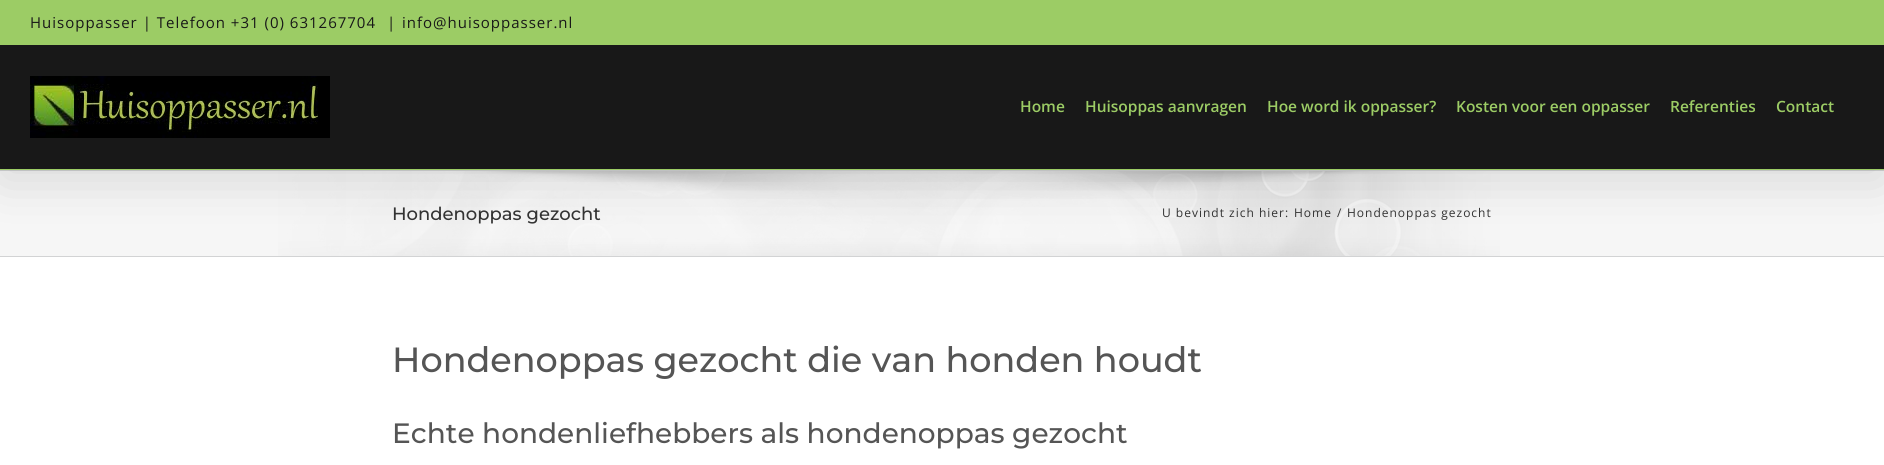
import math
import cairo



def draw_spaced(context, x, y, s, letter, word):
    context.move_to(x, y)
    for ch in s:
        context.show_text(ch)
        context.rel_move_to(letter + word * (ch == ' '), 0)


def rounded_rect(context, x, y, w, h, r):
    context.new_sub_path()
    for i, (u, v) in enumerate([(x + w - r, y + h - r), (x + r, y + h - r), (x + r, y + r), (x + w - r, y + r)]):
        context.arc(u, v, r, i * math.pi / 2, (i + 1) * math.pi / 2)
    context.close_path()


def draw_shadow(context, x, y, w, h, r, blur, alpha):
    context.push_group_with_content(cairo.Content.ALPHA)
    context.set_operator(cairo.Operator.SOURCE)
    for i in range(15, -16, -2):
        e = blur * i / 6
        if min(w, h) + 2 * e > 0:
            context.set_source_rgba(0, 0, 0, alpha * math.erfc((i - 1) / 8.5) / 2)
            rounded_rect(context, x - e, y - e, w + 2 * e, h + 2 * e, max(0, min(r + e + blur * .6, min(w, h) / 2 + e)))
            context.fill()
    context.mask(context.pop_group())


def draw_image(context, path, x, y, w, h):
    context.save()
    context.set_source_surface(cairo.ImageSurface.create_from_png(path), x, y)
    context.rectangle(x, y, w, h)
    context.fill()
    context.restore()


def draw(context):
    context.set_source_rgb(1, 1, 1)
    context.paint()
    context.set_source_rgb(246 / 255, 246 / 255, 246 / 255)
    context.rectangle(0, 171, 1884, 85)
    context.fill()
    draw_image(context, "images/2.png", 278, 171, 1222, 85)
    context.set_source_rgb(210 / 255, 211 / 255, 212 / 255)
    context.rectangle(0, 170, 1884, 1)
    context.fill()
    context.set_source_rgb(0, 0, 0)
    draw_shadow(context, 2, 12, 1880, 166, 0, 25, 0.14)
    context.set_source_rgb(156 / 255, 204 / 255, 101 / 255)
    context.rectangle(0, 0, 1884, 45)
    context.fill()
    context.set_source_rgb(24 / 255, 24 / 255, 24 / 255)
    context.rectangle(0, 45, 1884, 124)
    context.fill()
    context.set_source_rgb(156 / 255, 204 / 255, 101 / 255)
    context.rectangle(0, 169, 1884, 1)
    context.fill()
    draw_image(context, "images/1.png", 30, 76, 300, 62)
    context.set_source_rgb(210 / 255, 211 / 255, 212 / 255)
    context.rectangle(0, 256, 1884, 1)
    context.fill()
    context.select_font_face("Open Sans")
    context.set_font_size(15)
    context.set_source_rgb(24 / 255, 24 / 255, 24 / 255)
    draw_spaced(context, 30, 28, "Huisoppasser | Telefoon +31 (0) 631267704", 1, 0)
    draw_spaced(context, 387, 28, "|", 1, 0)
    draw_spaced(context, 402, 28, "info@huisoppasser.nl", 1, 0)
    context.select_font_face("Open Sans SemiBold")
    context.set_font_size(15.5)
    context.set_source_rgb(156 / 255, 204 / 255, 101 / 255)
    context.move_to(1020, 112)
    context.show_text("Home")
    context.move_to(1085, 112)
    context.show_text("Huisoppas aanvragen")
    context.move_to(1267, 112)
    context.show_text("Hoe word ik oppasser?")
    context.move_to(1456, 112)
    context.show_text("Kosten voor een oppasser")
    context.move_to(1670, 112)
    context.show_text("Referenties")
    context.move_to(1776, 112)
    context.show_text("Contact")
    context.select_font_face("Montserrat Thin")
    context.set_font_size(18)
    context.set_source_rgb(51 / 255, 51 / 255, 51 / 255)
    context.move_to(392, 220)
    context.show_text("Hondenoppas gezocht")
    context.select_font_face("Open Sans")
    context.set_font_size(12)
    draw_spaced(context, 1162, 217, "U bevindt zich hier:", 1, 0)
    draw_spaced(context, 1294, 217, "Home", 1, 0)
    draw_spaced(context, 1337, 217, "/", 1, 0)
    draw_spaced(context, 1347, 217, "Hondenoppas gezocht", 1, 0)
    context.select_font_face("Montserrat Thin")
    context.set_font_size(35)
    context.set_source_rgb(85 / 255, 85 / 255, 85 / 255)
    context.move_to(392, 372)
    context.show_text("Hondenoppas gezocht die van honden houdt")
    context.set_font_size(28)
    context.move_to(392, 443)
    context.show_text("Echte hondenliefhebbers als hondenoppas gezocht")


surface = cairo.ImageSurface(cairo.Format.RGB24, 1884, 465)
context = cairo.Context(surface)
options = cairo.FontOptions()
options.set_hint_metrics(cairo.HintMetrics.OFF)
options.set_hint_style(cairo.HintStyle.NONE)
context.set_font_options(options)
context.set_miter_limit(4)
draw(context)
surface.write_to_png("out.png")
